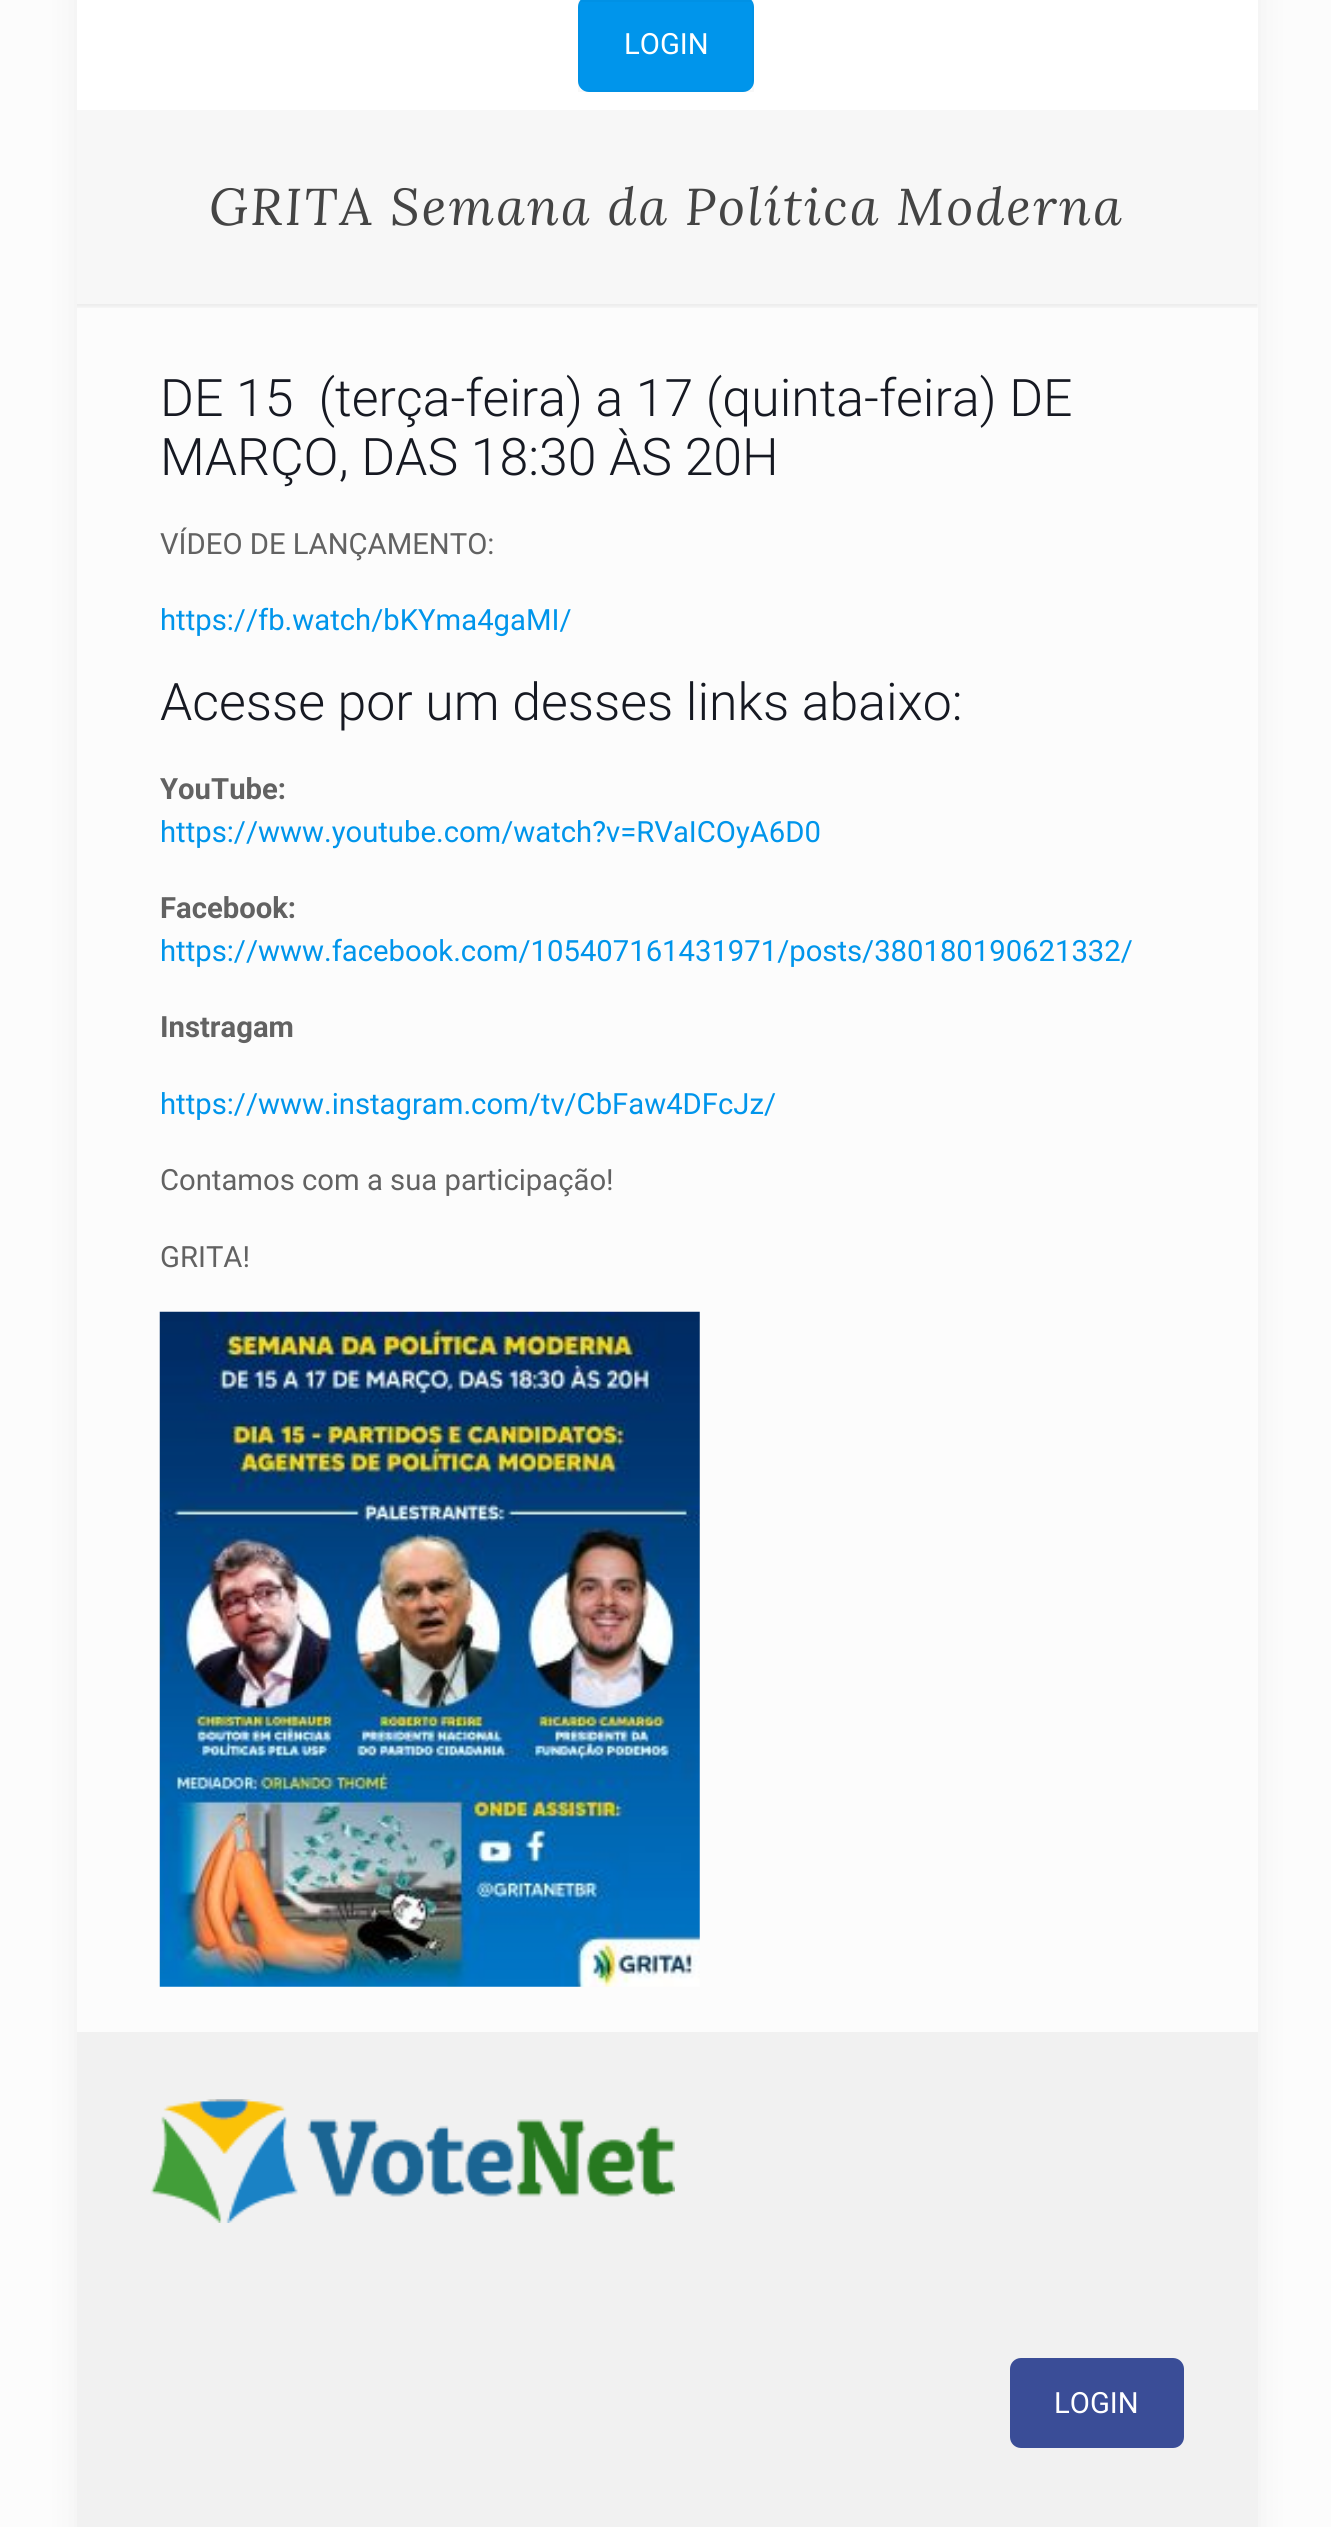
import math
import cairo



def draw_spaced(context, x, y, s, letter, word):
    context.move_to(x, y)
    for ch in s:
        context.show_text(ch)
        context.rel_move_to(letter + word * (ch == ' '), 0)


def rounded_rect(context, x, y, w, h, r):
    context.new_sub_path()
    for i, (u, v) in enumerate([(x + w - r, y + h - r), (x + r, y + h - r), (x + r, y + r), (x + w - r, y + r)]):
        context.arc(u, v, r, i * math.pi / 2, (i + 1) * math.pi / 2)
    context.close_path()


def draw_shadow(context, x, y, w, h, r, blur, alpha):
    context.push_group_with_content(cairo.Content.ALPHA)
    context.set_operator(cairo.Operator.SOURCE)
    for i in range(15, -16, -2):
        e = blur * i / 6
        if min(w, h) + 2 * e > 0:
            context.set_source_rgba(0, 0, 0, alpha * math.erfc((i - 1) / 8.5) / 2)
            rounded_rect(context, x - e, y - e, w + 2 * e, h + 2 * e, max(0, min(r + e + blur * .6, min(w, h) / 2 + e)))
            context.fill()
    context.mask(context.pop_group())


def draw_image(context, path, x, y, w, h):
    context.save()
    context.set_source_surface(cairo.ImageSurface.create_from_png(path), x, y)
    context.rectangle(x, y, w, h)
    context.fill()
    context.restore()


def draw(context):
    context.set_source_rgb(252 / 255, 252 / 255, 252 / 255)
    context.paint()
    context.set_source_rgb(0, 0, 0)
    draw_shadow(context, 77, -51, 1181, 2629, 0, 17, 0.06)
    context.set_source_rgb(252 / 255, 252 / 255, 252 / 255)
    context.rectangle(77, 304, 1181, 1728)
    context.fill()
    context.set_source_rgb(1, 1, 1)
    context.rectangle(77, 0, 1181, 110)
    context.fill()
    context.set_source_rgb(0, 149 / 255, 235 / 255)
    rounded_rect(context, 578, -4, 176, 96, 11)
    context.fill()
    context.set_source_rgba(0, 0, 0, 0.03)
    context.rectangle(580, 0, 172, 2)
    context.fill()
    context.rectangle(579, -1, 174, 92)
    context.stroke()
    context.set_source_rgb(247 / 255, 247 / 255, 247 / 255)
    context.rectangle(77, 110, 1181, 194)
    context.fill()
    draw_image(context, "images/1.png", 77, 304, 1181, 4)
    draw_image(context, "images/2.png", 159, 1311, 541, 676)
    context.set_source_rgb(241 / 255, 241 / 255, 241 / 255)
    context.rectangle(77, 2032, 1181, 495)
    context.fill()
    draw_image(context, "images/3.png", 150, 2099, 525, 124)
    context.set_source_rgb(58 / 255, 77 / 255, 151 / 255)
    rounded_rect(context, 1010, 2358, 174, 90, 11)
    context.fill()
    context.select_font_face("Roboto")
    context.set_font_size(29.25)
    context.set_source_rgb(1, 1, 1)
    context.move_to(624, 54)
    context.show_text("LOGIN")
    context.select_font_face("Lora", cairo.FontSlant.ITALIC)
    context.set_font_size(51.75)
    context.set_source_rgb(68 / 255, 68 / 255, 68 / 255)
    draw_spaced(context, 209, 225, "GRITA Semana da Política Moderna", 2.25, 0)
    context.select_font_face("Roboto Light")
    context.set_source_rgb(22 / 255, 25 / 255, 34 / 255)
    context.move_to(160, 416)
    context.show_text("DE 15  (terça-feira) a 17 (quinta-feira) DE")
    context.move_to(160, 475)
    context.show_text("MARÇO, DAS 18:30 ÀS 20H")
    context.select_font_face("Roboto")
    context.set_font_size(29.25)
    context.set_source_rgb(98 / 255, 98 / 255, 98 / 255)
    context.move_to(160, 554)
    context.show_text("VÍDEO DE LANÇAMENTO:")
    context.set_source_rgb(0, 149 / 255, 235 / 255)
    context.move_to(160, 630)
    context.show_text("https://fb.watch/bKYma4gaMI/")
    context.select_font_face("Roboto Light")
    context.set_font_size(51.75)
    context.set_source_rgb(22 / 255, 25 / 255, 34 / 255)
    context.move_to(160, 720)
    context.show_text("Acesse por um desses links abaixo:")
    context.select_font_face("Roboto", cairo.FontSlant.NORMAL, cairo.FontWeight.BOLD)
    context.set_font_size(29.25)
    context.set_source_rgb(98 / 255, 98 / 255, 98 / 255)
    context.move_to(160, 799)
    context.show_text("YouTube:")
    context.select_font_face("Roboto")
    context.set_source_rgb(0, 149 / 255, 235 / 255)
    context.move_to(160, 842)
    context.show_text("https://www.youtube.com/watch?v=RVaICOyA6D0")
    context.select_font_face("Roboto", cairo.FontSlant.NORMAL, cairo.FontWeight.BOLD)
    context.set_source_rgb(98 / 255, 98 / 255, 98 / 255)
    context.move_to(160, 918)
    context.show_text("Facebook:")
    context.select_font_face("Roboto")
    context.set_source_rgb(0, 149 / 255, 235 / 255)
    context.move_to(160, 961)
    context.show_text("https://www.facebook.com/105407161431971/posts/380180190621332/")
    context.select_font_face("Roboto", cairo.FontSlant.NORMAL, cairo.FontWeight.BOLD)
    context.set_source_rgb(98 / 255, 98 / 255, 98 / 255)
    context.move_to(160, 1037)
    context.show_text("Instragam")
    context.select_font_face("Roboto")
    context.set_source_rgb(0, 149 / 255, 235 / 255)
    context.move_to(160, 1114)
    context.show_text("https://www.instagram.com/tv/CbFaw4DFcJz/")
    context.set_source_rgb(98 / 255, 98 / 255, 98 / 255)
    context.move_to(160, 1190)
    context.show_text("Contamos com a sua participação!")
    context.move_to(160, 1267)
    context.show_text("GRITA!")
    context.set_source_rgb(1, 1, 1)
    context.move_to(1054, 2413)
    context.show_text("LOGIN")


surface = cairo.ImageSurface(cairo.Format.RGB24, 1331, 2527)
context = cairo.Context(surface)
options = cairo.FontOptions()
options.set_hint_metrics(cairo.HintMetrics.OFF)
options.set_hint_style(cairo.HintStyle.NONE)
context.set_font_options(options)
context.set_miter_limit(4)
draw(context)
surface.write_to_png("out.png")
